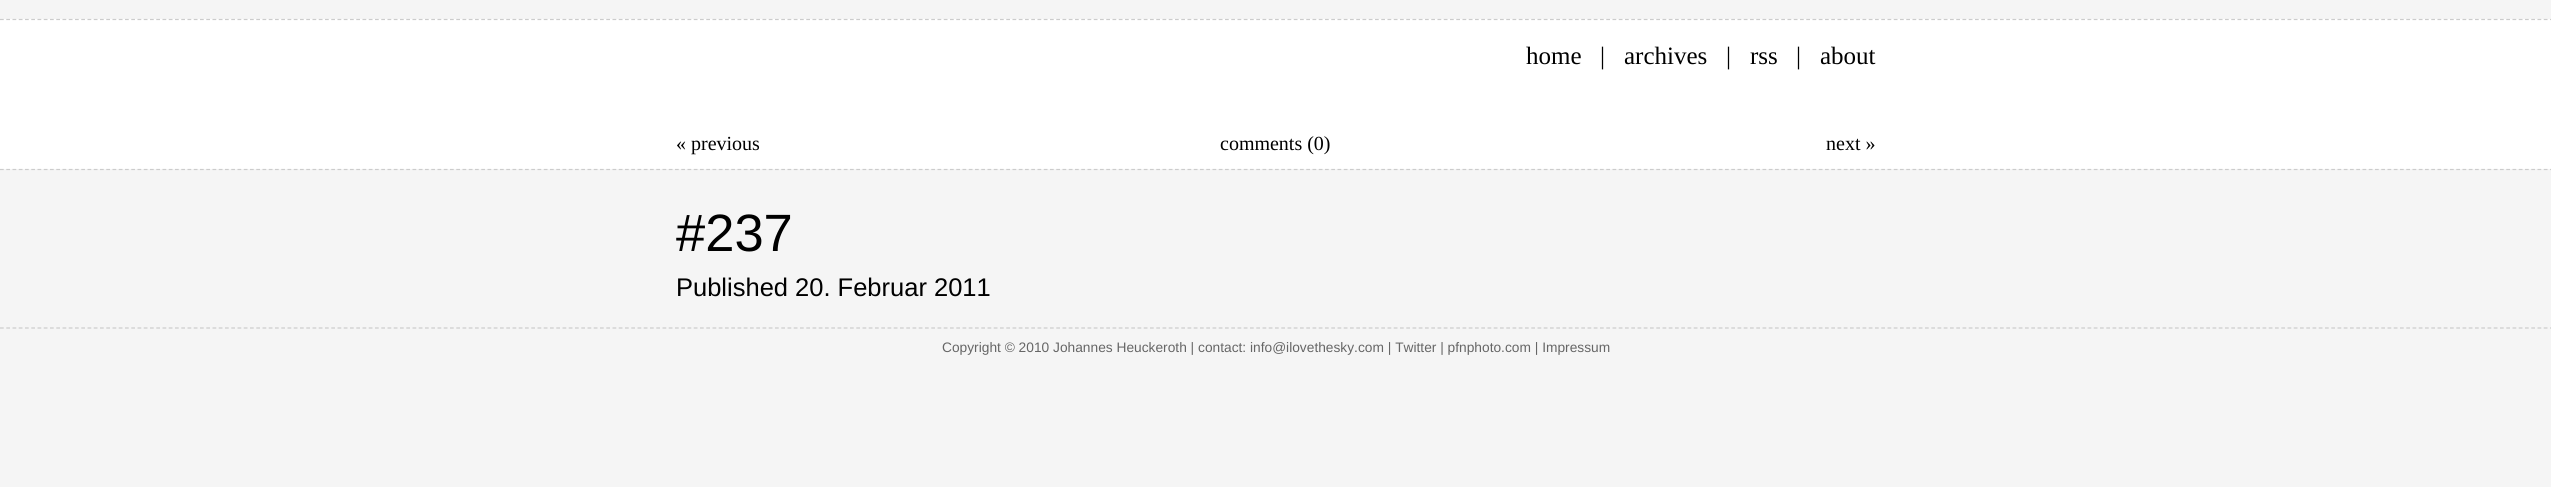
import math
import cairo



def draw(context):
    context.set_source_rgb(245 / 255, 245 / 255, 245 / 255)
    context.paint()
    context.set_source_rgb(1, 1, 1)
    context.rectangle(0, 19, 2551, 150)
    context.fill()
    context.new_path()
    context.move_to(0, 19.5)
    context.line_to(2551, 19.5)
    context.set_source_rgb(204 / 255, 204 / 255, 204 / 255)
    context.set_line_width(1.2)
    context.set_dash([3.75, 2.5])
    context.stroke()
    context.new_path()
    context.move_to(0, 169.5)
    context.line_to(2551, 169.5)
    context.stroke()
    context.new_path()
    context.move_to(0, 328)
    context.line_to(2551, 328)
    context.stroke()
    context.select_font_face("Liberation Serif")
    context.set_font_size(25)
    context.set_source_rgb(0, 0, 0)
    context.move_to(1526, 64)
    context.show_text("home")
    context.move_to(1600, 64)
    context.show_text("|")
    context.move_to(1624, 64)
    context.show_text("archives")
    context.move_to(1726, 64)
    context.show_text("|")
    context.move_to(1750, 64)
    context.show_text("rss")
    context.move_to(1796, 64)
    context.show_text("|")
    context.move_to(1820, 64)
    context.show_text("about")
    context.set_font_size(20)
    context.move_to(676, 150)
    context.show_text("« previous")
    context.move_to(1220, 150)
    context.show_text("comments (0)")
    context.move_to(1826, 150)
    context.show_text("next »")
    context.select_font_face("Liberation Sans")
    context.set_font_size(52.5)
    context.move_to(676, 251)
    context.show_text("#237")
    context.set_font_size(25.5)
    context.move_to(676, 296)
    context.show_text("Published 20. Februar 2011")
    context.set_font_size(13.75)
    context.set_source_rgb(102 / 255, 102 / 255, 102 / 255)
    context.move_to(942, 352)
    context.show_text("Copyright © 2010 Johannes Heuckeroth | contact: info@ilovethesky.com | Twitter | pfnphoto.com | Impressum")


surface = cairo.ImageSurface(cairo.Format.RGB24, 2551, 487)
context = cairo.Context(surface)
options = cairo.FontOptions()
options.set_hint_metrics(cairo.HintMetrics.OFF)
options.set_hint_style(cairo.HintStyle.NONE)
context.set_font_options(options)
context.set_miter_limit(4)
draw(context)
surface.write_to_png("out.png")
